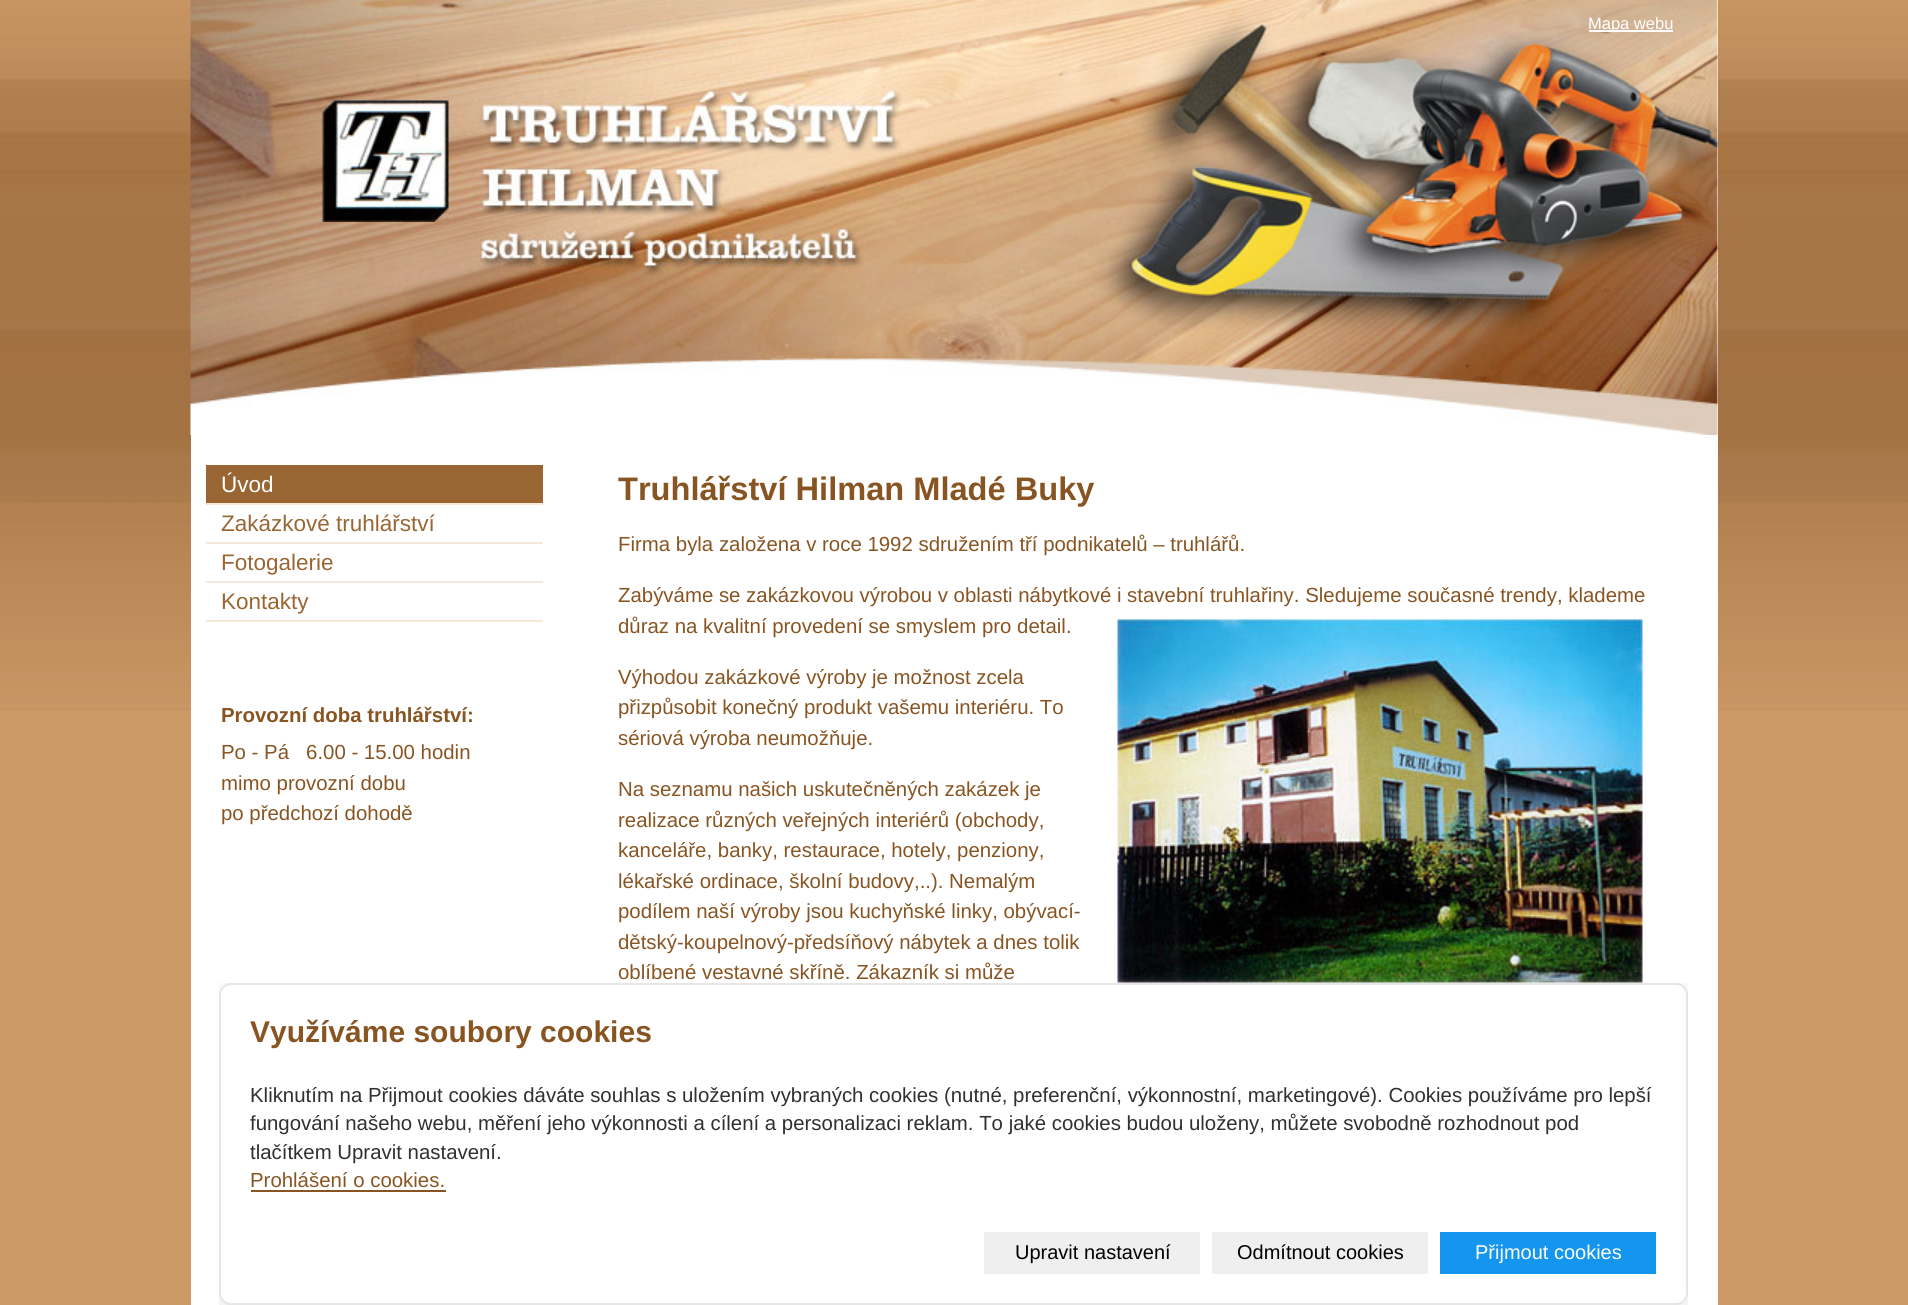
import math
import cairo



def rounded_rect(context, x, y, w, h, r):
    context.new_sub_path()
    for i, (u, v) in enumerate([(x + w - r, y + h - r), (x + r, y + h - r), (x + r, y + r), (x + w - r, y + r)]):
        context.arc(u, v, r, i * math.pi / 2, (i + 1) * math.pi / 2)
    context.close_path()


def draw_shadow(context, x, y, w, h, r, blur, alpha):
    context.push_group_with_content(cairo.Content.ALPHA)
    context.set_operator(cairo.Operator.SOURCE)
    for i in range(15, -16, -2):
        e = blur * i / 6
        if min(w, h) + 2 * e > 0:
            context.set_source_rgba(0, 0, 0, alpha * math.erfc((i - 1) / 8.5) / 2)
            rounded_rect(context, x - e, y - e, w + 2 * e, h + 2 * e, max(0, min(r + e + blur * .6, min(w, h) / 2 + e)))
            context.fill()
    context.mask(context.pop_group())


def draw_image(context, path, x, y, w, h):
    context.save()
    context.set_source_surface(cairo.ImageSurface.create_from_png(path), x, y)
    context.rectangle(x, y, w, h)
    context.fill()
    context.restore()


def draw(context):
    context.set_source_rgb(205 / 255, 153 / 255, 103 / 255)
    context.paint()
    draw_image(context, "images/1.png", 0, 0, 1908, 711)
    context.set_source_rgb(1, 1, 1)
    context.rectangle(191, 0, 1527, 1305)
    context.fill()
    draw_image(context, "images/2.png", 190, 0, 1528, 435)
    context.rectangle(1589, 30, 84, 2)
    context.fill()
    draw_image(context, "images/3.png", 322, 100, 127, 122)
    draw_image(context, "images/4.png", 472, 82, 436, 139)
    draw_image(context, "images/5.png", 472, 220, 405, 61)
    context.set_source_rgb(245 / 255, 232 / 255, 218 / 255)
    context.rectangle(206, 503, 337, 2)
    context.fill()
    context.set_source_rgb(153 / 255, 102 / 255, 51 / 255)
    context.rectangle(206, 465, 337, 38)
    context.fill()
    context.set_source_rgb(245 / 255, 232 / 255, 218 / 255)
    context.rectangle(206, 542, 337, 2)
    context.fill()
    context.rectangle(206, 581, 337, 2)
    context.fill()
    context.rectangle(206, 620, 337, 2)
    context.fill()
    draw_image(context, "images/6.png", 1117, 619, 526, 364)
    context.save()
    context.rectangle(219, 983, 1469, 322)
    context.clip()
    context.set_source_rgb(0, 0, 0)
    draw_shadow(context, 234, 1001, 1439, 292, 0, 15, 0.5)
    context.restore()
    context.set_source_rgb(1, 1, 1)
    rounded_rect(context, 219, 983, 1469, 322, 12)
    context.fill()
    rounded_rect(context, 220, 984, 1467, 320, 11)
    context.set_source_rgba(0, 0, 0, 0.1)
    context.stroke()
    context.set_source_rgb(136 / 255, 85 / 255, 34 / 255)
    context.rectangle(251, 1190, 195, 2)
    context.fill()
    context.set_source_rgb(239 / 255, 239 / 255, 239 / 255)
    context.rectangle(984, 1232, 216, 42)
    context.fill()
    context.rectangle(1212, 1232, 216, 42)
    context.fill()
    context.set_source_rgb(20 / 255, 150 / 255, 238 / 255)
    context.rectangle(1440, 1232, 216, 42)
    context.fill()
    context.select_font_face("Liberation Sans")
    context.set_font_size(16.5)
    context.set_source_rgb(1, 1, 1)
    context.move_to(1588, 29)
    context.show_text("Mapa webu")
    context.set_font_size(22.5)
    context.move_to(221, 492)
    context.show_text("Úvod")
    context.set_source_rgb(153 / 255, 102 / 255, 51 / 255)
    context.move_to(221, 531)
    context.show_text("Zakázkové truhlářství")
    context.move_to(221, 570)
    context.show_text("Fotogalerie")
    context.move_to(221, 609)
    context.show_text("Kontakty")
    context.select_font_face("Liberation Sans", cairo.FontSlant.NORMAL, cairo.FontWeight.BOLD)
    context.set_font_size(20.4)
    context.set_source_rgb(136 / 255, 85 / 255, 34 / 255)
    context.move_to(221, 722)
    context.show_text("Provozní doba truhlářství:")
    context.select_font_face("Liberation Sans")
    context.move_to(221, 759)
    context.show_text("Po - Pá   6.00 - 15.00 hodin")
    context.move_to(221, 790)
    context.show_text("mimo provozní dobu")
    context.move_to(221, 820)
    context.show_text("po předchozí dohodě")
    context.select_font_face("Liberation Sans", cairo.FontSlant.NORMAL, cairo.FontWeight.BOLD)
    context.set_font_size(32.6)
    context.move_to(618, 500)
    context.show_text("Truhlářství Hilman Mladé Buky")
    context.select_font_face("Liberation Sans")
    context.set_font_size(20.4)
    context.move_to(618, 551)
    context.show_text("Firma byla založena v roce 1992 sdružením tří podnikatelů – truhlářů.")
    context.move_to(618, 602)
    context.show_text("Zabýváme se zakázkovou výrobou v oblasti nábytkové i stavební truhlařiny. Sledujeme současné trendy, klademe")
    context.move_to(618, 633)
    context.show_text("důraz na kvalitní provedení se smyslem pro detail.")
    context.move_to(618, 684)
    context.show_text("Výhodou zakázkové výroby je možnost zcela")
    context.move_to(618, 714)
    context.show_text("přizpůsobit konečný produkt vašemu interiéru. To")
    context.move_to(618, 745)
    context.show_text("sériová výroba neumožňuje.")
    context.move_to(618, 796)
    context.show_text("Na seznamu našich uskutečněných zakázek je")
    context.move_to(618, 827)
    context.show_text("realizace různých veřejných interiérů (obchody,")
    context.move_to(618, 857)
    context.show_text("kanceláře, banky, restaurace, hotely, penziony,")
    context.move_to(618, 888)
    context.show_text("lékařské ordinace, školní budovy,..). Nemalým")
    context.move_to(618, 918)
    context.show_text("podílem naší výroby jsou kuchyňské linky, obývací-")
    context.move_to(618, 949)
    context.show_text("dětský-koupelnový-předsíňový nábytek a dnes tolik")
    context.move_to(618, 979)
    context.show_text("oblíbené vestavné skříně. Zákazník si může")
    context.select_font_face("Liberation Sans", cairo.FontSlant.NORMAL, cairo.FontWeight.BOLD)
    context.set_font_size(30)
    context.move_to(250, 1042)
    context.show_text("Využíváme soubory cookies")
    context.select_font_face("Liberation Sans")
    context.set_font_size(20.4)
    context.set_source_rgb(48 / 255, 48 / 255, 48 / 255)
    context.move_to(250, 1102)
    context.show_text("Kliknutím na Přijmout cookies dáváte souhlas s uložením vybraných cookies (nutné, preferenční, výkonnostní, marketingové). Cookies používáme pro lepší")
    context.move_to(250, 1130)
    context.show_text("fungování našeho webu, měření jeho výkonnosti a cílení a personalizaci reklam. To jaké cookies budou uloženy, můžete svobodně rozhodnout pod")
    context.move_to(250, 1159)
    context.show_text("tlačítkem Upravit nastavení.")
    context.set_source_rgb(136 / 255, 85 / 255, 34 / 255)
    context.move_to(250, 1187)
    context.show_text("Prohlášení o cookies.")
    context.set_font_size(20)
    context.set_source_rgb(0, 0, 0)
    context.move_to(1015, 1259)
    context.show_text("Upravit nastavení")
    context.move_to(1237, 1259)
    context.show_text("Odmítnout cookies")
    context.set_source_rgb(1, 1, 1)
    context.move_to(1475, 1259)
    context.show_text("Přijmout cookies")


surface = cairo.ImageSurface(cairo.Format.RGB24, 1908, 1305)
context = cairo.Context(surface)
options = cairo.FontOptions()
options.set_hint_metrics(cairo.HintMetrics.OFF)
options.set_hint_style(cairo.HintStyle.NONE)
context.set_font_options(options)
context.set_miter_limit(4)
draw(context)
surface.write_to_png("out.png")
